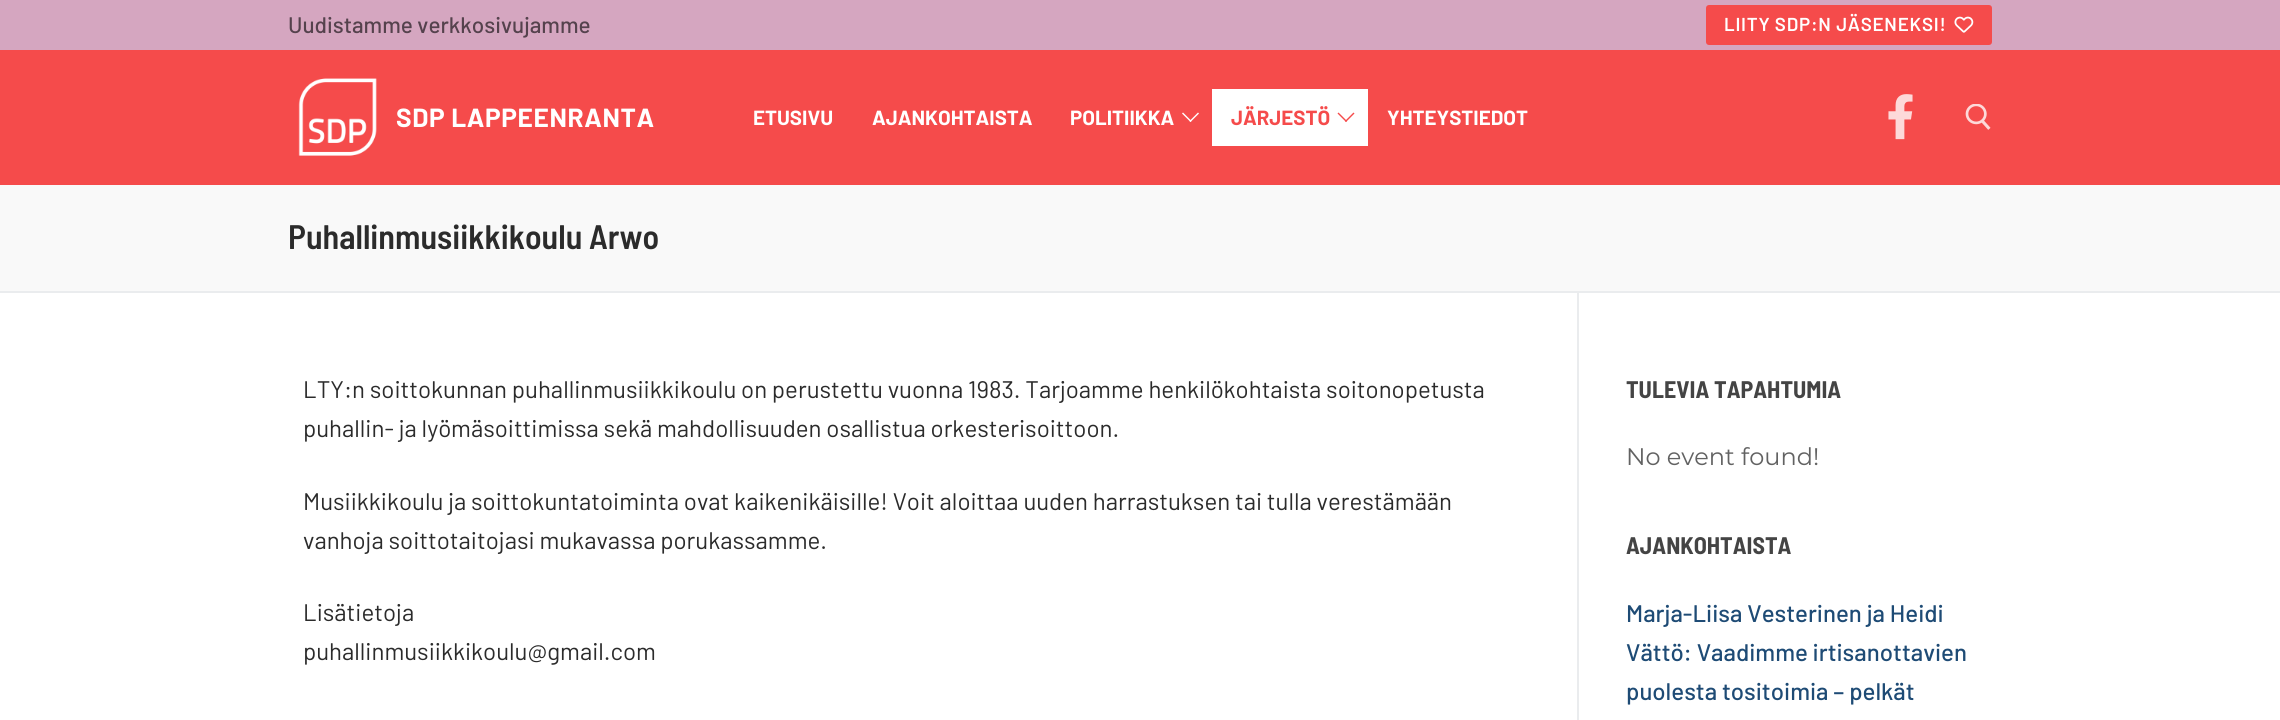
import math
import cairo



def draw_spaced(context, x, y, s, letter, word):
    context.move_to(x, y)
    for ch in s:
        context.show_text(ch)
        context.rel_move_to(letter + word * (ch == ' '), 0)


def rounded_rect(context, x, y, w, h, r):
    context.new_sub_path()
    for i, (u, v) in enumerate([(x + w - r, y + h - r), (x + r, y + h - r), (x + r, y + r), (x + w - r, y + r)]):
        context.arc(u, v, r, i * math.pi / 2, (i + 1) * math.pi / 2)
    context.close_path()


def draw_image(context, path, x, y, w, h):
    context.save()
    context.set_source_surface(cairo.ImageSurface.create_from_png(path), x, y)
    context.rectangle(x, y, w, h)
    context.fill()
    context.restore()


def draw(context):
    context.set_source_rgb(1, 1, 1)
    context.paint()
    context.set_source_rgb(213 / 255, 166 / 255, 192 / 255)
    context.rectangle(0, 0, 2280, 50)
    context.fill()
    context.set_source_rgb(245 / 255, 75 / 255, 75 / 255)
    rounded_rect(context, 1706, 5, 286, 40, 3)
    context.fill()
    draw_image(context, "images/1.png", 1954, 16, 20, 17)
    context.rectangle(0, 50, 2280, 135)
    context.fill()
    draw_image(context, "images/2.png", 298, 78, 79, 78)
    context.set_source_rgb(1, 1, 1)
    context.rectangle(1212, 89, 156, 57)
    context.fill()
    context.new_path()
    context.move_to(1190.5, 122)
    context.line_to(1182, 113.5)
    context.line_to(1183, 112.5)
    context.line_to(1191.5, 121)
    context.close_path()
    context.fill()
    context.new_path()
    context.move_to(1190.5, 122)
    context.line_to(1189.5, 121)
    context.line_to(1198, 112.5)
    context.line_to(1199, 113.5)
    context.close_path()
    context.fill()
    context.set_source_rgb(245 / 255, 75 / 255, 75 / 255)
    context.new_path()
    context.move_to(1346, 122)
    context.line_to(1337.5, 113.5)
    context.line_to(1338.5, 112.5)
    context.line_to(1347, 121)
    context.close_path()
    context.fill()
    context.new_path()
    context.move_to(1346, 122)
    context.line_to(1345, 121)
    context.line_to(1353.5, 112.5)
    context.line_to(1354.5, 113.5)
    context.close_path()
    context.fill()
    draw_image(context, "images/3.png", 1888, 94, 25, 46)
    draw_image(context, "images/4.png", 1965, 104, 26, 26)
    context.set_source_rgb(249 / 255, 249 / 255, 249 / 255)
    context.rectangle(0, 185, 2280, 106)
    context.fill()
    context.set_source_rgb(234 / 255, 236 / 255, 238 / 255)
    context.rectangle(0, 291, 2280, 2)
    context.fill()
    context.rectangle(1577, 293, 2, 427)
    context.fill()
    context.select_font_face("Barlow Medium")
    context.set_font_size(22.5)
    context.set_source_rgb(85 / 255, 66 / 255, 77 / 255)
    context.move_to(288, 33)
    context.show_text("Uudistamme verkkosivujamme")
    context.select_font_face("Barlow SemiBold")
    context.set_font_size(18.75)
    context.set_source_rgb(1, 1, 1)
    draw_spaced(context, 1724, 31, "LIITY SDP:N JÄSENEKSI!", 0.75, 0)
    context.select_font_face("Barlow", cairo.FontSlant.NORMAL, cairo.FontWeight.BOLD)
    context.set_font_size(26.25)
    draw_spaced(context, 396, 127, "SDP LAPPEENRANTA", 0.6, 0)
    context.set_font_size(20.5)
    context.move_to(753, 125)
    context.show_text("ETUSIVU")
    context.move_to(872, 125)
    context.show_text("AJANKOHTAISTA")
    context.move_to(1070, 125)
    context.show_text("POLITIIKKA")
    context.set_source_rgb(245 / 255, 75 / 255, 75 / 255)
    context.move_to(1231, 125)
    context.show_text("JÄRJESTÖ")
    context.set_source_rgb(1, 1, 1)
    context.move_to(1387, 125)
    context.show_text("YHTEYSTIEDOT")
    context.select_font_face("Barlow Semi Condensed SemiBold")
    context.set_font_size(34)
    context.set_source_rgb(43 / 255, 43 / 255, 43 / 255)
    context.move_to(288, 249)
    context.show_text("Puhallinmusiikkikoulu Arwo")
    context.select_font_face("Barlow")
    context.set_font_size(24)
    context.move_to(303, 398)
    context.show_text("LTY:n soittokunnan puhallinmusiikkikoulu on perustettu vuonna 1983. Tarjoamme henkilökohtaista soitonopetusta")
    context.move_to(303, 437)
    context.show_text("puhallin- ja lyömäsoittimissa sekä mahdollisuuden osallistua orkesterisoittoon.")
    context.move_to(303, 510)
    context.show_text("Musiikkikoulu ja soittokuntatoiminta ovat kaikenikäisille! Voit aloittaa uuden harrastuksen tai tulla verestämään")
    context.move_to(303, 549)
    context.show_text("vanhoja soittotaitojasi mukavassa porukassamme.")
    context.move_to(303, 621)
    context.show_text("Lisätietoja")
    context.move_to(303, 660)
    context.show_text("puhallinmusiikkikoulu@gmail.com")
    context.select_font_face("Barlow Semi Condensed", cairo.FontSlant.NORMAL, cairo.FontWeight.BOLD)
    context.set_source_rgb(68 / 255, 68 / 255, 68 / 255)
    context.move_to(1626, 398)
    context.show_text("TULEVIA TAPAHTUMIA")
    context.select_font_face("Montserrat")
    context.set_source_rgb(98 / 255, 98 / 255, 98 / 255)
    context.move_to(1626, 465)
    context.show_text("No event found!")
    context.select_font_face("Barlow Semi Condensed", cairo.FontSlant.NORMAL, cairo.FontWeight.BOLD)
    context.set_source_rgb(68 / 255, 68 / 255, 68 / 255)
    context.move_to(1626, 554)
    context.show_text("AJANKOHTAISTA")
    context.select_font_face("Barlow Medium")
    context.set_source_rgb(30 / 255, 75 / 255, 117 / 255)
    context.move_to(1626, 622)
    context.show_text("Marja-Liisa Vesterinen ja Heidi")
    context.move_to(1626, 661)
    context.show_text("Vättö: Vaadimme irtisanottavien")
    context.move_to(1626, 700)
    context.show_text("puolesta tositoimia – pelkät")


surface = cairo.ImageSurface(cairo.Format.RGB24, 2280, 720)
context = cairo.Context(surface)
options = cairo.FontOptions()
options.set_hint_metrics(cairo.HintMetrics.OFF)
options.set_hint_style(cairo.HintStyle.NONE)
context.set_font_options(options)
context.set_miter_limit(4)
draw(context)
surface.write_to_png("out.png")
